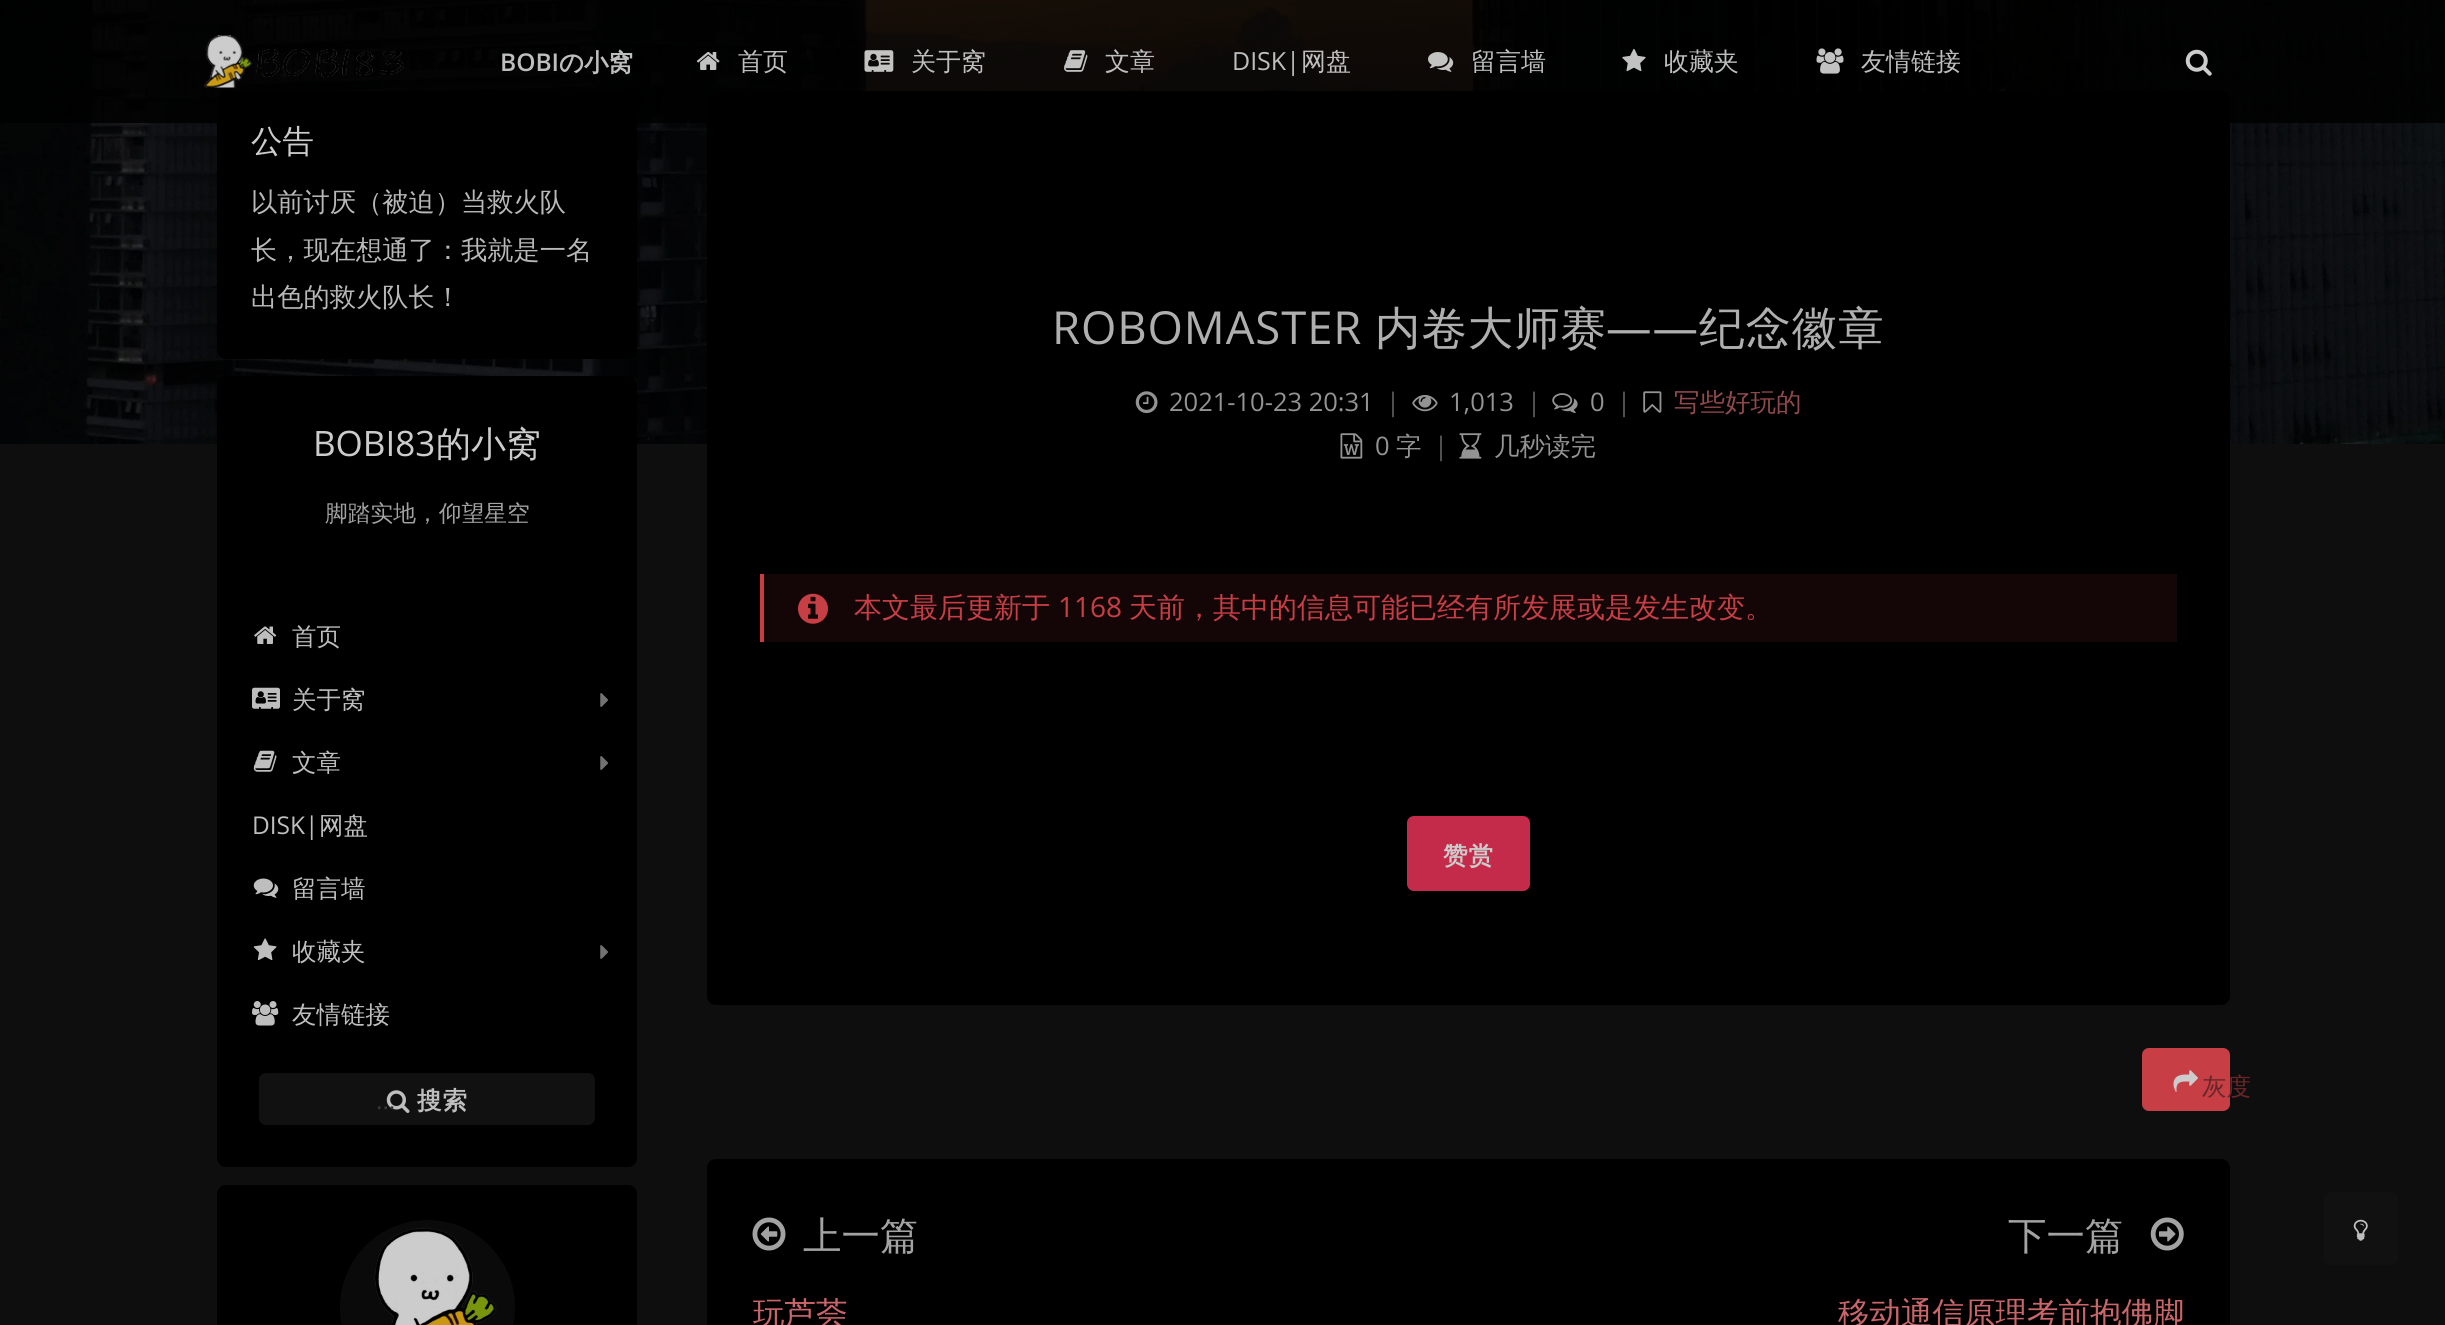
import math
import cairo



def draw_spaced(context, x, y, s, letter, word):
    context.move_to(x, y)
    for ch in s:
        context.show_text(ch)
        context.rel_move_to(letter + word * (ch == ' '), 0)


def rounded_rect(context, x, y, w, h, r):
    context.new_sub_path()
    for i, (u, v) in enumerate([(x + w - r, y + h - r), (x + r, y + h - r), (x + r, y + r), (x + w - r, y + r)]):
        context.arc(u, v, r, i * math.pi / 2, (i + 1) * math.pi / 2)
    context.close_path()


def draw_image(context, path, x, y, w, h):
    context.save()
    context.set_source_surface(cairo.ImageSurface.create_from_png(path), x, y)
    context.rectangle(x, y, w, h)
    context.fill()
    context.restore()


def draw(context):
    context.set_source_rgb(14 / 255, 14 / 255, 14 / 255)
    context.paint()
    draw_image(context, "images/1.png", 0, 0, 2445, 444)
    context.set_source_rgb(0, 0, 0)
    rounded_rect(context, 217, 91, 420, 268, 9)
    context.fill()
    rounded_rect(context, 707, 91, 1523, 914, 9)
    context.fill()
    context.set_source_rgba(0, 0, 0, 0.85)
    context.rectangle(0, 0, 2445, 123)
    context.fill()
    draw_image(context, "images/2.png", 204, 35, 200, 53)
    draw_image(context, "images/3.png", 696, 52, 24, 18)
    draw_image(context, "images/4.png", 864, 50, 30, 22)
    draw_image(context, "images/5.png", 1064, 50, 24, 22)
    draw_image(context, "images/6.png", 1428, 52, 26, 20)
    draw_image(context, "images/7.png", 1622, 48, 24, 24)
    draw_image(context, "images/8.png", 1816, 48, 28, 26)
    draw_image(context, "images/9.png", 2185, 49, 27, 27)
    context.set_source_rgb(0, 0, 0)
    rounded_rect(context, 217, 376, 420, 791, 9)
    context.fill()
    draw_image(context, "images/10.png", 254, 626, 23, 18)
    draw_image(context, "images/11.png", 252, 687, 28, 22)
    draw_image(context, "images/12.png", 600, 693, 8, 14)
    draw_image(context, "images/13.png", 253, 750, 24, 22)
    draw_image(context, "images/12.png", 600, 756, 8, 14)
    draw_image(context, "images/14.png", 253, 878, 26, 20)
    draw_image(context, "images/15.png", 253, 938, 24, 23)
    draw_image(context, "images/12.png", 600, 945, 8, 14)
    draw_image(context, "images/16.png", 252, 1001, 27, 25)
    context.set_source_rgb(17 / 255, 17 / 255, 17 / 255)
    rounded_rect(context, 259, 1073, 336, 52, 7)
    context.fill()
    draw_image(context, "images/17.png", 386, 1090, 24, 23)
    context.set_source_rgb(0, 0, 0)
    rounded_rect(context, 217, 1185, 420, 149, 9)
    context.fill()
    context.set_source_rgb(10 / 255, 10 / 255, 10 / 255)
    context.arc(427.5, 1307.5, 87.5, 0, 2 * math.pi)
    context.fill()
    draw_image(context, "images/18.png", 374, 1228, 123, 97)
    draw_image(context, "images/19.png", 1135, 391, 23, 23)
    draw_image(context, "images/20.png", 1412, 394, 26, 18)
    draw_image(context, "images/21.png", 1552, 393, 26, 20)
    draw_image(context, "images/22.png", 1643, 391, 19, 22)
    draw_image(context, "images/23.png", 1340, 433, 23, 26)
    draw_image(context, "images/24.png", 1459, 433, 23, 26)
    context.set_source_rgb(20 / 255, 6 / 255, 7 / 255)
    context.rectangle(764, 574, 1413, 68)
    context.fill()
    context.set_source_rgb(199 / 255, 62 / 255, 69 / 255)
    context.rectangle(760, 574, 4, 68)
    context.fill()
    draw_image(context, "images/25.png", 798, 593, 30, 31)
    context.set_source_rgb(196 / 255, 43 / 255, 74 / 255)
    rounded_rect(context, 1408, 817, 121, 73, 6)
    context.fill_preserve()
    context.stroke()
    context.set_source_rgb(199 / 255, 62 / 255, 69 / 255)
    rounded_rect(context, 2143, 1049, 86, 61, 6)
    context.fill_preserve()
    context.stroke()
    draw_image(context, "images/26.png", 2173, 1070, 25, 22)
    context.set_source_rgb(0, 0, 0)
    rounded_rect(context, 707, 1159, 1523, 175, 9)
    context.fill()
    draw_image(context, "images/27.png", 752, 1217, 34, 34)
    draw_image(context, "images/28.png", 2150, 1217, 34, 34)
    context.set_source_rgb(17 / 255, 17 / 255, 17 / 255)
    rounded_rect(context, 2324, 1192, 74, 73, 7)
    context.fill()
    draw_image(context, "images/29.png", 2353, 1219, 15, 22)
    context.select_font_face("Open Sans SemiBold")
    context.set_font_size(24.5)
    context.set_source_rgb(190 / 255, 190 / 255, 190 / 255)
    context.move_to(500, 71)
    context.show_text("BOBI")
    context.select_font_face("WenQuanYi Zen Hei", cairo.FontSlant.NORMAL, cairo.FontWeight.BOLD)
    context.move_to(559, 71)
    context.show_text("の小窝")
    context.select_font_face("WenQuanYi Zen Hei Medium")
    context.set_font_size(25)
    context.move_to(738, 70)
    context.show_text("首页")
    context.move_to(911, 70)
    context.show_text("关于窝")
    context.move_to(1105, 70)
    context.show_text("文章")
    context.select_font_face("Open Sans")
    context.move_to(1232, 70)
    context.show_text("DISK|")
    context.select_font_face("WenQuanYi Zen Hei Medium")
    context.move_to(1301, 70)
    context.show_text("网盘")
    context.move_to(1471, 70)
    context.show_text("留言墙")
    context.move_to(1664, 70)
    context.show_text("收藏夹")
    context.move_to(1861, 70)
    context.show_text("友情链接")
    context.set_font_size(31.5)
    context.set_source_rgb(204 / 255, 204 / 255, 204 / 255)
    context.move_to(251, 152)
    context.show_text("公告")
    context.set_font_size(26.25)
    context.set_source_rgb(184 / 255, 184 / 255, 184 / 255)
    context.move_to(251, 211)
    context.show_text("以前讨厌（被迫）当救火队")
    context.move_to(251, 259)
    context.show_text("长，现在想通了：我就是一名")
    context.move_to(251, 306)
    context.show_text("出色的救火队长！")
    context.select_font_face("Open Sans")
    context.set_font_size(35)
    context.set_source_rgb(204 / 255, 204 / 255, 204 / 255)
    context.move_to(313, 456)
    context.show_text("BOBI83")
    context.select_font_face("WenQuanYi Zen Hei Medium")
    context.move_to(436, 456)
    context.show_text("的小窝")
    context.set_font_size(22.75)
    context.set_source_rgb(163 / 255, 163 / 255, 163 / 255)
    context.move_to(325, 521)
    context.show_text("脚踏实地，仰望星空")
    context.set_font_size(24.5)
    context.set_source_rgb(190 / 255, 190 / 255, 190 / 255)
    context.move_to(292, 645)
    context.show_text("首页")
    context.move_to(292, 708)
    context.show_text("关于窝")
    context.move_to(292, 771)
    context.show_text("文章")
    context.select_font_face("Open Sans")
    context.move_to(252, 834)
    context.show_text("DISK|")
    context.select_font_face("WenQuanYi Zen Hei Medium")
    context.move_to(319, 834)
    context.show_text("网盘")
    context.move_to(292, 897)
    context.show_text("留言墙")
    context.move_to(292, 960)
    context.show_text("收藏夹")
    context.move_to(292, 1023)
    context.show_text("友情链接")
    context.select_font_face("WenQuanYi Zen Hei", cairo.FontSlant.NORMAL, cairo.FontWeight.BOLD)
    draw_spaced(context, 417, 1109, "搜索", 1, 0)
    context.select_font_face("Open Sans")
    context.set_source_rgb(54 / 255, 54 / 255, 54 / 255)
    context.move_to(376, 1109)
    context.show_text("...")
    context.set_font_size(45.5)
    context.set_source_rgb(175 / 255, 175 / 255, 175 / 255)
    draw_spaced(context, 1052, 344, "ROBOMASTER", 0.9, 0)
    context.select_font_face("WenQuanYi Zen Hei Medium")
    draw_spaced(context, 1375, 344, "内卷大师赛", 0.9, 0)
    context.select_font_face("Open Sans")
    draw_spaced(context, 1606, 344, "——", 0.9, 0)
    context.select_font_face("WenQuanYi Zen Hei Medium")
    draw_spaced(context, 1699, 344, "纪念徽章", 0.9, 0)
    context.select_font_face("Open Sans")
    context.set_font_size(25.5)
    context.set_source_rgb(147 / 255, 147 / 255, 147 / 255)
    context.move_to(1169, 411)
    context.show_text("2021-10-23 20:31")
    context.set_source_rgb(92 / 255, 92 / 255, 92 / 255)
    context.move_to(1386, 411)
    context.show_text("|")
    context.set_source_rgb(147 / 255, 147 / 255, 147 / 255)
    context.move_to(1449, 411)
    context.show_text("1,013")
    context.set_source_rgb(92 / 255, 92 / 255, 92 / 255)
    context.move_to(1527, 411)
    context.show_text("|")
    context.set_source_rgb(147 / 255, 147 / 255, 147 / 255)
    context.move_to(1590, 411)
    context.show_text("0")
    context.set_source_rgb(92 / 255, 92 / 255, 92 / 255)
    context.move_to(1617, 411)
    context.show_text("|")
    context.select_font_face("WenQuanYi Zen Hei Medium")
    context.set_source_rgb(144 / 255, 73 / 255, 77 / 255)
    context.move_to(1674, 411)
    context.show_text("写些好玩的")
    context.select_font_face("Open Sans")
    context.set_source_rgb(147 / 255, 147 / 255, 147 / 255)
    context.move_to(1375, 455)
    context.show_text("0")
    context.select_font_face("WenQuanYi Zen Hei Medium")
    context.move_to(1396, 455)
    context.show_text("字")
    context.select_font_face("Open Sans")
    context.set_source_rgb(92 / 255, 92 / 255, 92 / 255)
    context.move_to(1434, 455)
    context.show_text("|")
    context.select_font_face("WenQuanYi Zen Hei Medium")
    context.set_source_rgb(147 / 255, 147 / 255, 147 / 255)
    context.move_to(1494, 455)
    context.show_text("几秒读完")
    context.set_font_size(28)
    context.set_source_rgb(199 / 255, 62 / 255, 69 / 255)
    context.move_to(854, 617)
    context.show_text("本文最后更新于")
    context.select_font_face("Open Sans")
    context.move_to(1058, 617)
    context.show_text("1168")
    context.select_font_face("WenQuanYi Zen Hei Medium")
    context.move_to(1129, 617)
    context.show_text("天前，其中的信息可能已经有所发展或是发生改变。")
    context.select_font_face("WenQuanYi Zen Hei", cairo.FontSlant.NORMAL, cairo.FontWeight.BOLD)
    context.set_font_size(24.5)
    context.set_source_rgb(204 / 255, 204 / 255, 204 / 255)
    draw_spaced(context, 1443, 864, "赞赏", 1, 0)
    context.select_font_face("WenQuanYi Zen Hei Medium")
    context.set_font_size(38.5)
    context.set_source_rgb(163 / 255, 163 / 255, 163 / 255)
    context.move_to(803, 1249)
    context.show_text("上一篇")
    context.set_font_size(31.5)
    context.set_source_rgb(200 / 255, 102 / 255, 106 / 255)
    context.move_to(753, 1324)
    context.show_text("玩芦荟")
    context.set_font_size(38.5)
    context.set_source_rgb(163 / 255, 163 / 255, 163 / 255)
    context.move_to(2008, 1249)
    context.show_text("下一篇")
    context.set_font_size(31.5)
    context.set_source_rgb(200 / 255, 102 / 255, 106 / 255)
    context.move_to(1838, 1324)
    context.show_text("移动通信原理考前抱佛脚")
    context.set_font_size(24.5)
    context.set_source_rgb(104 / 255, 38 / 255, 41 / 255)
    context.move_to(2202, 1095)
    context.show_text("灰度")


surface = cairo.ImageSurface(cairo.Format.RGB24, 2445, 1325)
context = cairo.Context(surface)
options = cairo.FontOptions()
options.set_hint_metrics(cairo.HintMetrics.OFF)
options.set_hint_style(cairo.HintStyle.NONE)
context.set_font_options(options)
context.set_miter_limit(4)
draw(context)
surface.write_to_png("out.png")
